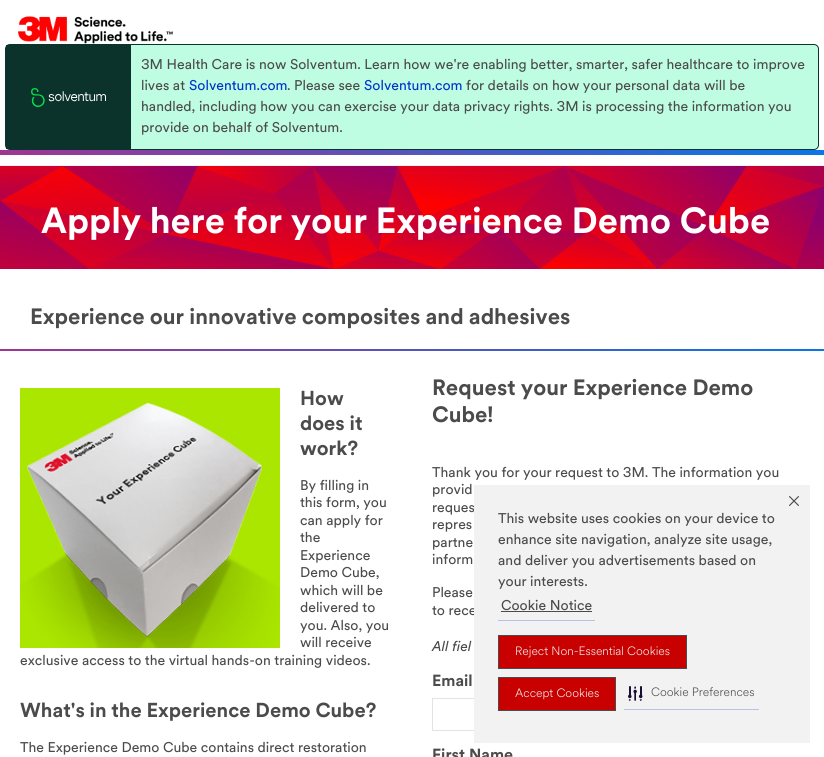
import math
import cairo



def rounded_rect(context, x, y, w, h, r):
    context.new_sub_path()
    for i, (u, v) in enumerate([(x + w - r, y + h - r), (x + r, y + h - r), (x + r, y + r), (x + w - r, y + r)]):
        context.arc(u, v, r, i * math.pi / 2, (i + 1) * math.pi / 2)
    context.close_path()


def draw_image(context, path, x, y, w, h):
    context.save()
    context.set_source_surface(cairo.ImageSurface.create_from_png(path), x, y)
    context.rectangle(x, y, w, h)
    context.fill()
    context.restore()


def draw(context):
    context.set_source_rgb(1, 1, 1)
    context.paint()
    draw_image(context, "images/1.png", 18, 16, 155, 28)
    context.set_source_rgb(191 / 255, 253 / 255, 227 / 255)
    rounded_rect(context, 5.5, 44.5, 813, 105, 4.5)
    context.fill_preserve()
    context.set_source_rgb(10 / 255, 51 / 255, 43 / 255)
    context.set_line_width(1)
    context.stroke()
    context.set_source_rgb(11 / 255, 51 / 255, 43 / 255)
    context.rectangle(6, 45, 125, 104)
    context.fill()
    draw_image(context, "images/2.png", 31, 88, 75, 19)
    gradient = cairo.LinearGradient(0, 150, 824, 150)
    gradient.add_color_stop_rgba(0, 159 / 255, 53 / 255, 147 / 255, 1)
    gradient.add_color_stop_rgba(1, 10 / 255, 117 / 255, 231 / 255, 1)
    context.set_source(gradient)
    context.rectangle(0, 150, 824, 5)
    context.fill()
    context.set_source_rgb(242 / 255, 242 / 255, 242 / 255)
    context.rectangle(0, 165, 824, 1)
    context.fill()
    draw_image(context, "images/3.png", 0, 166, 824, 103)
    gradient = cairo.LinearGradient(0, 349, 824, 349)
    gradient.add_color_stop_rgba(0, 159 / 255, 53 / 255, 147 / 255, 1)
    gradient.add_color_stop_rgba(1, 10 / 255, 117 / 255, 231 / 255, 1)
    context.set_source(gradient)
    context.rectangle(0, 349, 824, 2)
    context.fill()
    draw_image(context, "images/4.png", 20, 388, 260, 260)
    context.rectangle(432.5, 698.5, 371, 32)
    context.set_source_rgb(228 / 255, 227 / 255, 227 / 255)
    context.stroke()
    context.select_font_face("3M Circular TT")
    context.set_font_size(14)
    context.set_source_rgb(75 / 255, 75 / 255, 75 / 255)
    context.move_to(141, 69)
    context.show_text("3M Health Care is now Solventum. Learn how we're enabling better, smarter, safer healthcare to improve")
    context.move_to(141, 90)
    context.show_text("lives at")
    context.set_source_rgb(0, 51 / 255, 204 / 255)
    context.move_to(189, 90)
    context.show_text("Solventum.com")
    context.set_source_rgb(75 / 255, 75 / 255, 75 / 255)
    context.move_to(287, 90)
    context.show_text(". Please see")
    context.set_source_rgb(0, 51 / 255, 204 / 255)
    context.move_to(364, 90)
    context.show_text("Solventum.com")
    context.set_source_rgb(75 / 255, 75 / 255, 75 / 255)
    context.move_to(466, 90)
    context.show_text("for details on how your personal data will be")
    context.move_to(141, 111)
    context.show_text("handled, including how you can exercise your data privacy rights. 3M is processing the information you")
    context.move_to(141, 132)
    context.show_text("provide on behalf of Solventum.")
    context.select_font_face("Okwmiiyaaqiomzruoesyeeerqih", cairo.FontSlant.NORMAL, cairo.FontWeight.BOLD)
    context.set_font_size(36)
    context.set_source_rgb(1, 1, 1)
    context.move_to(41, 233)
    context.show_text("Apply here for your Experience Demo Cube")
    context.set_font_size(22)
    context.set_source_rgb(75 / 255, 75 / 255, 75 / 255)
    context.move_to(30, 324)
    context.show_text("Experience our innovative composites and adhesives")
    context.set_font_size(20)
    context.move_to(300, 405)
    context.show_text("How")
    context.move_to(300, 430)
    context.show_text("does it")
    context.move_to(300, 455)
    context.show_text("work?")
    context.select_font_face("3M Circular TT")
    context.set_font_size(14)
    context.move_to(300, 490)
    context.show_text("By filling in")
    context.move_to(300, 507)
    context.show_text("this form, you")
    context.move_to(300, 525)
    context.show_text("can apply for")
    context.move_to(300, 542)
    context.show_text("the")
    context.move_to(300, 560)
    context.show_text("Experience")
    context.move_to(300, 577)
    context.show_text("Demo Cube,")
    context.move_to(300, 595)
    context.show_text("which will be")
    context.move_to(300, 612)
    context.show_text("delivered to")
    context.move_to(300, 630)
    context.show_text("you. Also, you")
    context.move_to(300, 647)
    context.show_text("will receive")
    context.move_to(20, 665)
    context.show_text("exclusive access to the virtual hands-on training videos.")
    context.select_font_face("Okwmiiyaaqiomzruoesyeeerqih", cairo.FontSlant.NORMAL, cairo.FontWeight.BOLD)
    context.set_font_size(20)
    context.move_to(20, 717)
    context.show_text("What's in the Experience Demo Cube?")
    context.select_font_face("3M Circular TT")
    context.set_font_size(14)
    context.move_to(20, 752)
    context.show_text("The Experience Demo Cube contains direct restoration")
    context.select_font_face("Okwmiiyaaqiomzruoesyeeerqih", cairo.FontSlant.NORMAL, cairo.FontWeight.BOLD)
    context.set_font_size(22)
    context.move_to(432, 395)
    context.show_text("Request your Experience Demo")
    context.move_to(432, 422)
    context.show_text("Cube!")
    context.select_font_face("3M Circular TT")
    context.set_font_size(14)
    context.move_to(432, 477)
    context.show_text("Thank you for your request to 3M. The information you")
    context.move_to(432, 494)
    context.show_text("provid")
    context.move_to(432, 512)
    context.show_text("reques")
    context.move_to(432, 529)
    context.show_text("repres")
    context.move_to(432, 547)
    context.show_text("partne")
    context.move_to(432, 564)
    context.show_text("inform")
    context.move_to(432, 597)
    context.show_text("Please")
    context.move_to(432, 615)
    context.show_text("to rece")
    context.select_font_face("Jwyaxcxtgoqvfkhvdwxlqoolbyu", cairo.FontSlant.ITALIC)
    context.move_to(432, 651)
    context.show_text("All fiel")
    context.select_font_face("Okwmiiyaaqiomzruoesyeeerqih", cairo.FontSlant.NORMAL, cairo.FontWeight.BOLD)
    context.set_font_size(16)
    context.move_to(432, 686)
    context.show_text("Email")
    context.move_to(432, 760)
    context.show_text("First Name")
    context.set_source_rgb(242 / 255, 242 / 255, 242 / 255)
    context.rectangle(474, 485, 336, 258)
    context.fill()
    context.select_font_face("3M Circular TT")
    context.set_font_size(14)
    context.set_source_rgb(75 / 255, 75 / 255, 75 / 255)
    context.move_to(498, 523)
    context.show_text("This website uses cookies on your device to")
    context.move_to(498, 544)
    context.show_text("enhance site navigation, analyze site usage,")
    context.move_to(498, 565)
    context.show_text("and deliver you advertisements based on")
    context.move_to(498, 586)
    context.show_text("your interests.")
    context.set_source_rgb(182 / 255, 194 / 255, 233 / 255)
    context.rectangle(498, 620, 97, 1)
    context.fill()
    context.set_source_rgb(75 / 255, 75 / 255, 75 / 255)
    context.move_to(501, 610)
    context.show_text("Cookie Notice")
    context.rectangle(501, 611, 91, 1)
    context.fill()
    draw_image(context, "images/5.png", 789, 496, 10, 10)
    context.set_source_rgb(200 / 255, 0, 0)
    context.rectangle(498.5, 635.5, 188, 33)
    context.fill_preserve()
    context.set_source_rgb(75 / 255, 75 / 255, 75 / 255)
    context.stroke()
    context.select_font_face("3M Circular TT Light")
    context.set_font_size(12)
    context.set_source_rgb(242 / 255, 242 / 255, 242 / 255)
    context.move_to(515, 655)
    context.show_text("Reject Non-Essential Cookies")
    context.set_source_rgb(200 / 255, 0, 0)
    context.rectangle(498.5, 677.5, 117, 33)
    context.fill_preserve()
    context.set_source_rgb(75 / 255, 75 / 255, 75 / 255)
    context.stroke()
    context.set_source_rgb(242 / 255, 242 / 255, 242 / 255)
    context.move_to(515, 697)
    context.show_text("Accept Cookies")
    context.set_source_rgb(182 / 255, 194 / 255, 233 / 255)
    context.rectangle(624, 709, 135, 1)
    context.fill()
    draw_image(context, "images/6.png", 628, 686, 15, 15)
    context.set_source_rgb(75 / 255, 75 / 255, 75 / 255)
    context.move_to(651, 696)
    context.show_text("Cookie Preferences")


surface = cairo.ImageSurface(cairo.Format.RGB24, 824, 757)
context = cairo.Context(surface)
options = cairo.FontOptions()
options.set_hint_metrics(cairo.HintMetrics.OFF)
options.set_hint_style(cairo.HintStyle.NONE)
context.set_font_options(options)
context.set_miter_limit(4)
draw(context)
surface.write_to_png("out.png")
